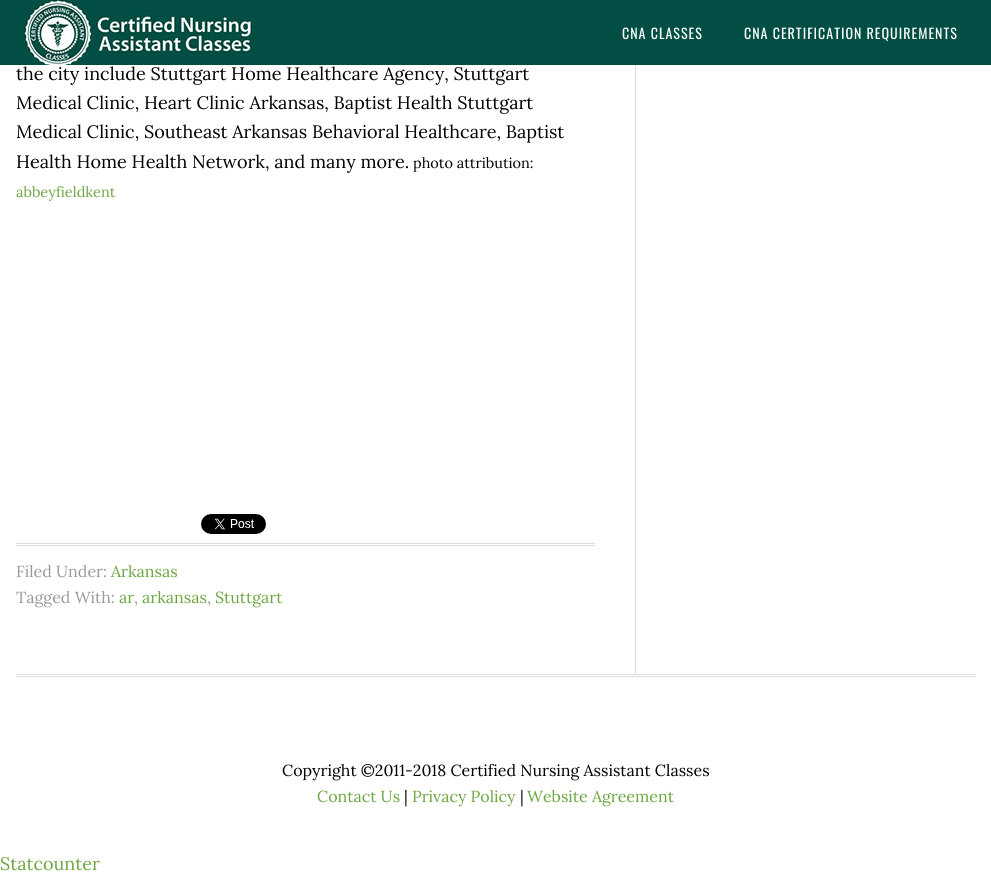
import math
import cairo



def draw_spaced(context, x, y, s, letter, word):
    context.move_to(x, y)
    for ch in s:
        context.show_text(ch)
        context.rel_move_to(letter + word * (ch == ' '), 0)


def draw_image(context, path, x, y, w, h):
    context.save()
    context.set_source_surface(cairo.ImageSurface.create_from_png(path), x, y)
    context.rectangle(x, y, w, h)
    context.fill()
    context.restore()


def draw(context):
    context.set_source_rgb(1, 1, 1)
    context.paint()
    context.set_source_rgb(2 / 255, 78 / 255, 68 / 255)
    context.rectangle(0, 0, 991, 65)
    context.fill()
    draw_image(context, "images/1.png", 20, 0, 236, 65)
    context.set_source_rgb(221 / 255, 221 / 255, 221 / 255)
    context.rectangle(16, 674, 960, 1)
    context.fill()
    context.rectangle(16, 676, 960, 1)
    context.fill()
    context.rectangle(635, 65, 1, 609)
    context.fill()
    draw_image(context, "images/2.png", 201, 514, 65, 20)
    context.rectangle(16, 543, 579, 1)
    context.fill()
    context.rectangle(16, 545, 579, 1)
    context.fill()
    context.select_font_face("Oswald")
    context.set_font_size(14)
    context.set_source_rgb(1, 1, 1)
    draw_spaced(context, 622, 39, "CNA CLASSES", 1, 0)
    draw_spaced(context, 744, 39, "CNA CERTIFICATION REQUIREMENTS", 1, 0)
    context.select_font_face("Lora")
    context.set_font_size(18)
    context.set_source_rgb(0, 0, 0)
    context.move_to(16, 80)
    context.show_text("the city include Stuttgart Home Healthcare Agency, Stuttgart")
    context.move_to(16, 109)
    context.show_text("Medical Clinic, Heart Clinic Arkansas, Baptist Health Stuttgart")
    context.move_to(16, 138)
    context.show_text("Medical Clinic, Southeast Arkansas Behavioral Healthcare, Baptist")
    context.move_to(16, 168)
    context.show_text("Health Home Health Network, and many more.")
    context.set_font_size(14.5)
    context.move_to(413, 168)
    context.show_text("photo attribution:")
    context.set_source_rgb(108 / 255, 167 / 255, 65 / 255)
    context.move_to(16, 197)
    context.show_text("abbeyfieldkent")
    context.set_font_size(16)
    context.set_source_rgb(153 / 255, 153 / 255, 153 / 255)
    context.move_to(16, 577)
    context.show_text("Filed Under:")
    context.set_source_rgb(108 / 255, 167 / 255, 65 / 255)
    context.move_to(111, 577)
    context.show_text("Arkansas")
    context.set_source_rgb(153 / 255, 153 / 255, 153 / 255)
    context.move_to(16, 603)
    context.show_text("Tagged With:")
    context.set_source_rgb(108 / 255, 167 / 255, 65 / 255)
    context.move_to(119, 603)
    context.show_text("ar")
    context.set_source_rgb(153 / 255, 153 / 255, 153 / 255)
    context.move_to(134, 603)
    context.show_text(",")
    context.set_source_rgb(108 / 255, 167 / 255, 65 / 255)
    context.move_to(142, 603)
    context.show_text("arkansas")
    context.set_source_rgb(153 / 255, 153 / 255, 153 / 255)
    context.move_to(207, 603)
    context.show_text(",")
    context.set_source_rgb(108 / 255, 167 / 255, 65 / 255)
    context.move_to(215, 603)
    context.show_text("Stuttgart")
    context.set_source_rgb(0, 0, 0)
    context.move_to(282, 776)
    context.show_text("Copyright ©2011-2018 Certified Nursing Assistant Classes")
    context.set_source_rgb(108 / 255, 167 / 255, 65 / 255)
    context.move_to(317, 802)
    context.show_text("Contact Us")
    context.set_source_rgb(0, 0, 0)
    context.move_to(404, 802)
    context.show_text("|")
    context.set_source_rgb(108 / 255, 167 / 255, 65 / 255)
    context.move_to(412, 802)
    context.show_text("Privacy Policy")
    context.set_source_rgb(0, 0, 0)
    context.move_to(520, 802)
    context.show_text("|")
    context.set_source_rgb(108 / 255, 167 / 255, 65 / 255)
    context.move_to(527, 802)
    context.show_text("Website Agreement")
    context.set_font_size(18)
    context.move_to(0, 870)
    context.show_text("Statcounter")


surface = cairo.ImageSurface(cairo.Format.RGB24, 991, 879)
context = cairo.Context(surface)
options = cairo.FontOptions()
options.set_hint_metrics(cairo.HintMetrics.OFF)
options.set_hint_style(cairo.HintStyle.NONE)
context.set_font_options(options)
context.set_miter_limit(4)
draw(context)
surface.write_to_png("out.png")
